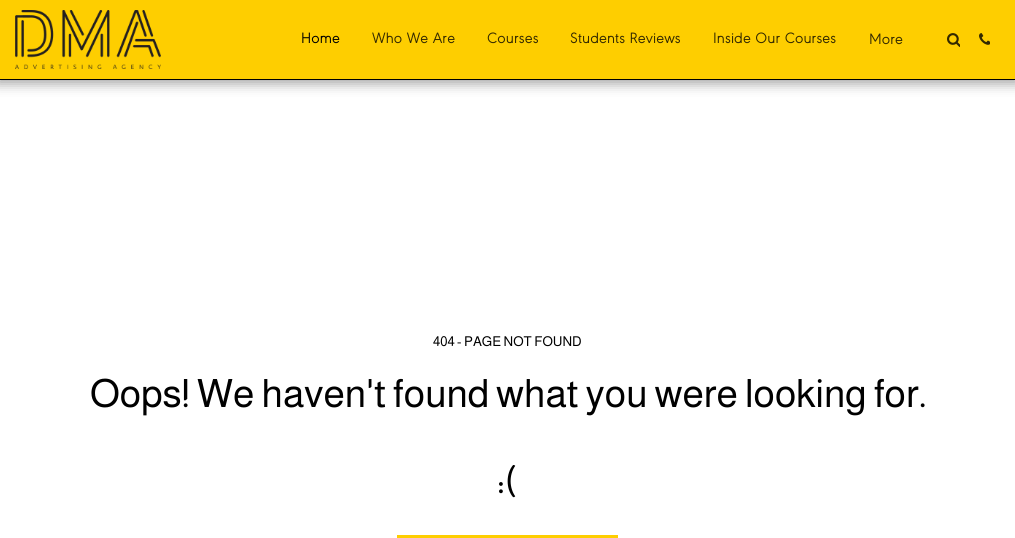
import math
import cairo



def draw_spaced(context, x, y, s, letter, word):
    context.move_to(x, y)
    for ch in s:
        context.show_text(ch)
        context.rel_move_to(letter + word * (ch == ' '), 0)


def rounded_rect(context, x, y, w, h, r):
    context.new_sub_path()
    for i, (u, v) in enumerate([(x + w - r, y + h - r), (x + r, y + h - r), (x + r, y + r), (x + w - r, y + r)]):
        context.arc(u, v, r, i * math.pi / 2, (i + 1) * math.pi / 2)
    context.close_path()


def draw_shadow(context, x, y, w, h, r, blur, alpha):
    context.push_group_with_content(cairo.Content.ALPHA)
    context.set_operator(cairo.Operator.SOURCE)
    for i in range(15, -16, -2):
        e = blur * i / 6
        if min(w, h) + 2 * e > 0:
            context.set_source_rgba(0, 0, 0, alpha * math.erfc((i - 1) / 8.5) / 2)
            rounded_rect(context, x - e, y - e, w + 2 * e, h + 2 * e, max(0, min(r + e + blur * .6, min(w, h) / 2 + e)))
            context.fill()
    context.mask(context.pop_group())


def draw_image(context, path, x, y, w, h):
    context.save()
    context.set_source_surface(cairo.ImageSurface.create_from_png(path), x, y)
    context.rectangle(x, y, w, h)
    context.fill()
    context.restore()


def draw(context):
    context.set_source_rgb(1, 1, 1)
    context.paint()
    context.set_source_rgb(0, 0, 0)
    draw_shadow(context, -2, 0, 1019, 84, 0, 6, 0.35)
    context.set_source_rgb(254 / 255, 206 / 255, 0)
    context.rectangle(0, 0, 1015, 79)
    context.fill()
    context.set_source_rgb(0, 0, 0)
    context.rectangle(0, 79, 1015, 1)
    context.fill()
    draw_image(context, "images/1.png", 15, 10, 146, 59)
    draw_image(context, "images/2.png", 947, 33, 13, 14)
    draw_image(context, "images/3.png", 979, 33, 11, 12)
    context.set_source_rgb(254 / 255, 206 / 255, 0)
    context.rectangle(397, 535, 221, 3)
    context.fill()
    context.select_font_face("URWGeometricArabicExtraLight", cairo.FontSlant.NORMAL, cairo.FontWeight.BOLD)
    context.set_font_size(15)
    context.set_source_rgb(0, 0, 0)
    draw_spaced(context, 301, 43, "Home", 0.5, 0)
    context.set_source_rgb(51 / 255, 41 / 255, 0)
    draw_spaced(context, 372, 43, "Who We Are", 0.5, 0)
    draw_spaced(context, 487, 43, "Courses", 0.5, 0)
    draw_spaced(context, 570, 43, "Students Reviews", 0.5, 0)
    draw_spaced(context, 713, 43, "Inside Our Courses", 0.5, 0)
    draw_spaced(context, 869, 44, "More", 0.5, 0)
    context.select_font_face("Almarai")
    context.set_font_size(13.6)
    context.set_source_rgb(0, 0, 0)
    context.move_to(433, 346)
    context.show_text("404 - PAGE NOT FOUND")
    context.set_font_size(39.1)
    context.move_to(90, 407)
    context.show_text("Oops! We haven't found what you were looking for.")
    context.move_to(497, 493)
    context.show_text(":(")


surface = cairo.ImageSurface(cairo.Format.RGB24, 1015, 538)
context = cairo.Context(surface)
options = cairo.FontOptions()
options.set_hint_metrics(cairo.HintMetrics.OFF)
options.set_hint_style(cairo.HintStyle.NONE)
context.set_font_options(options)
context.set_miter_limit(4)
draw(context)
surface.write_to_png("out.png")
